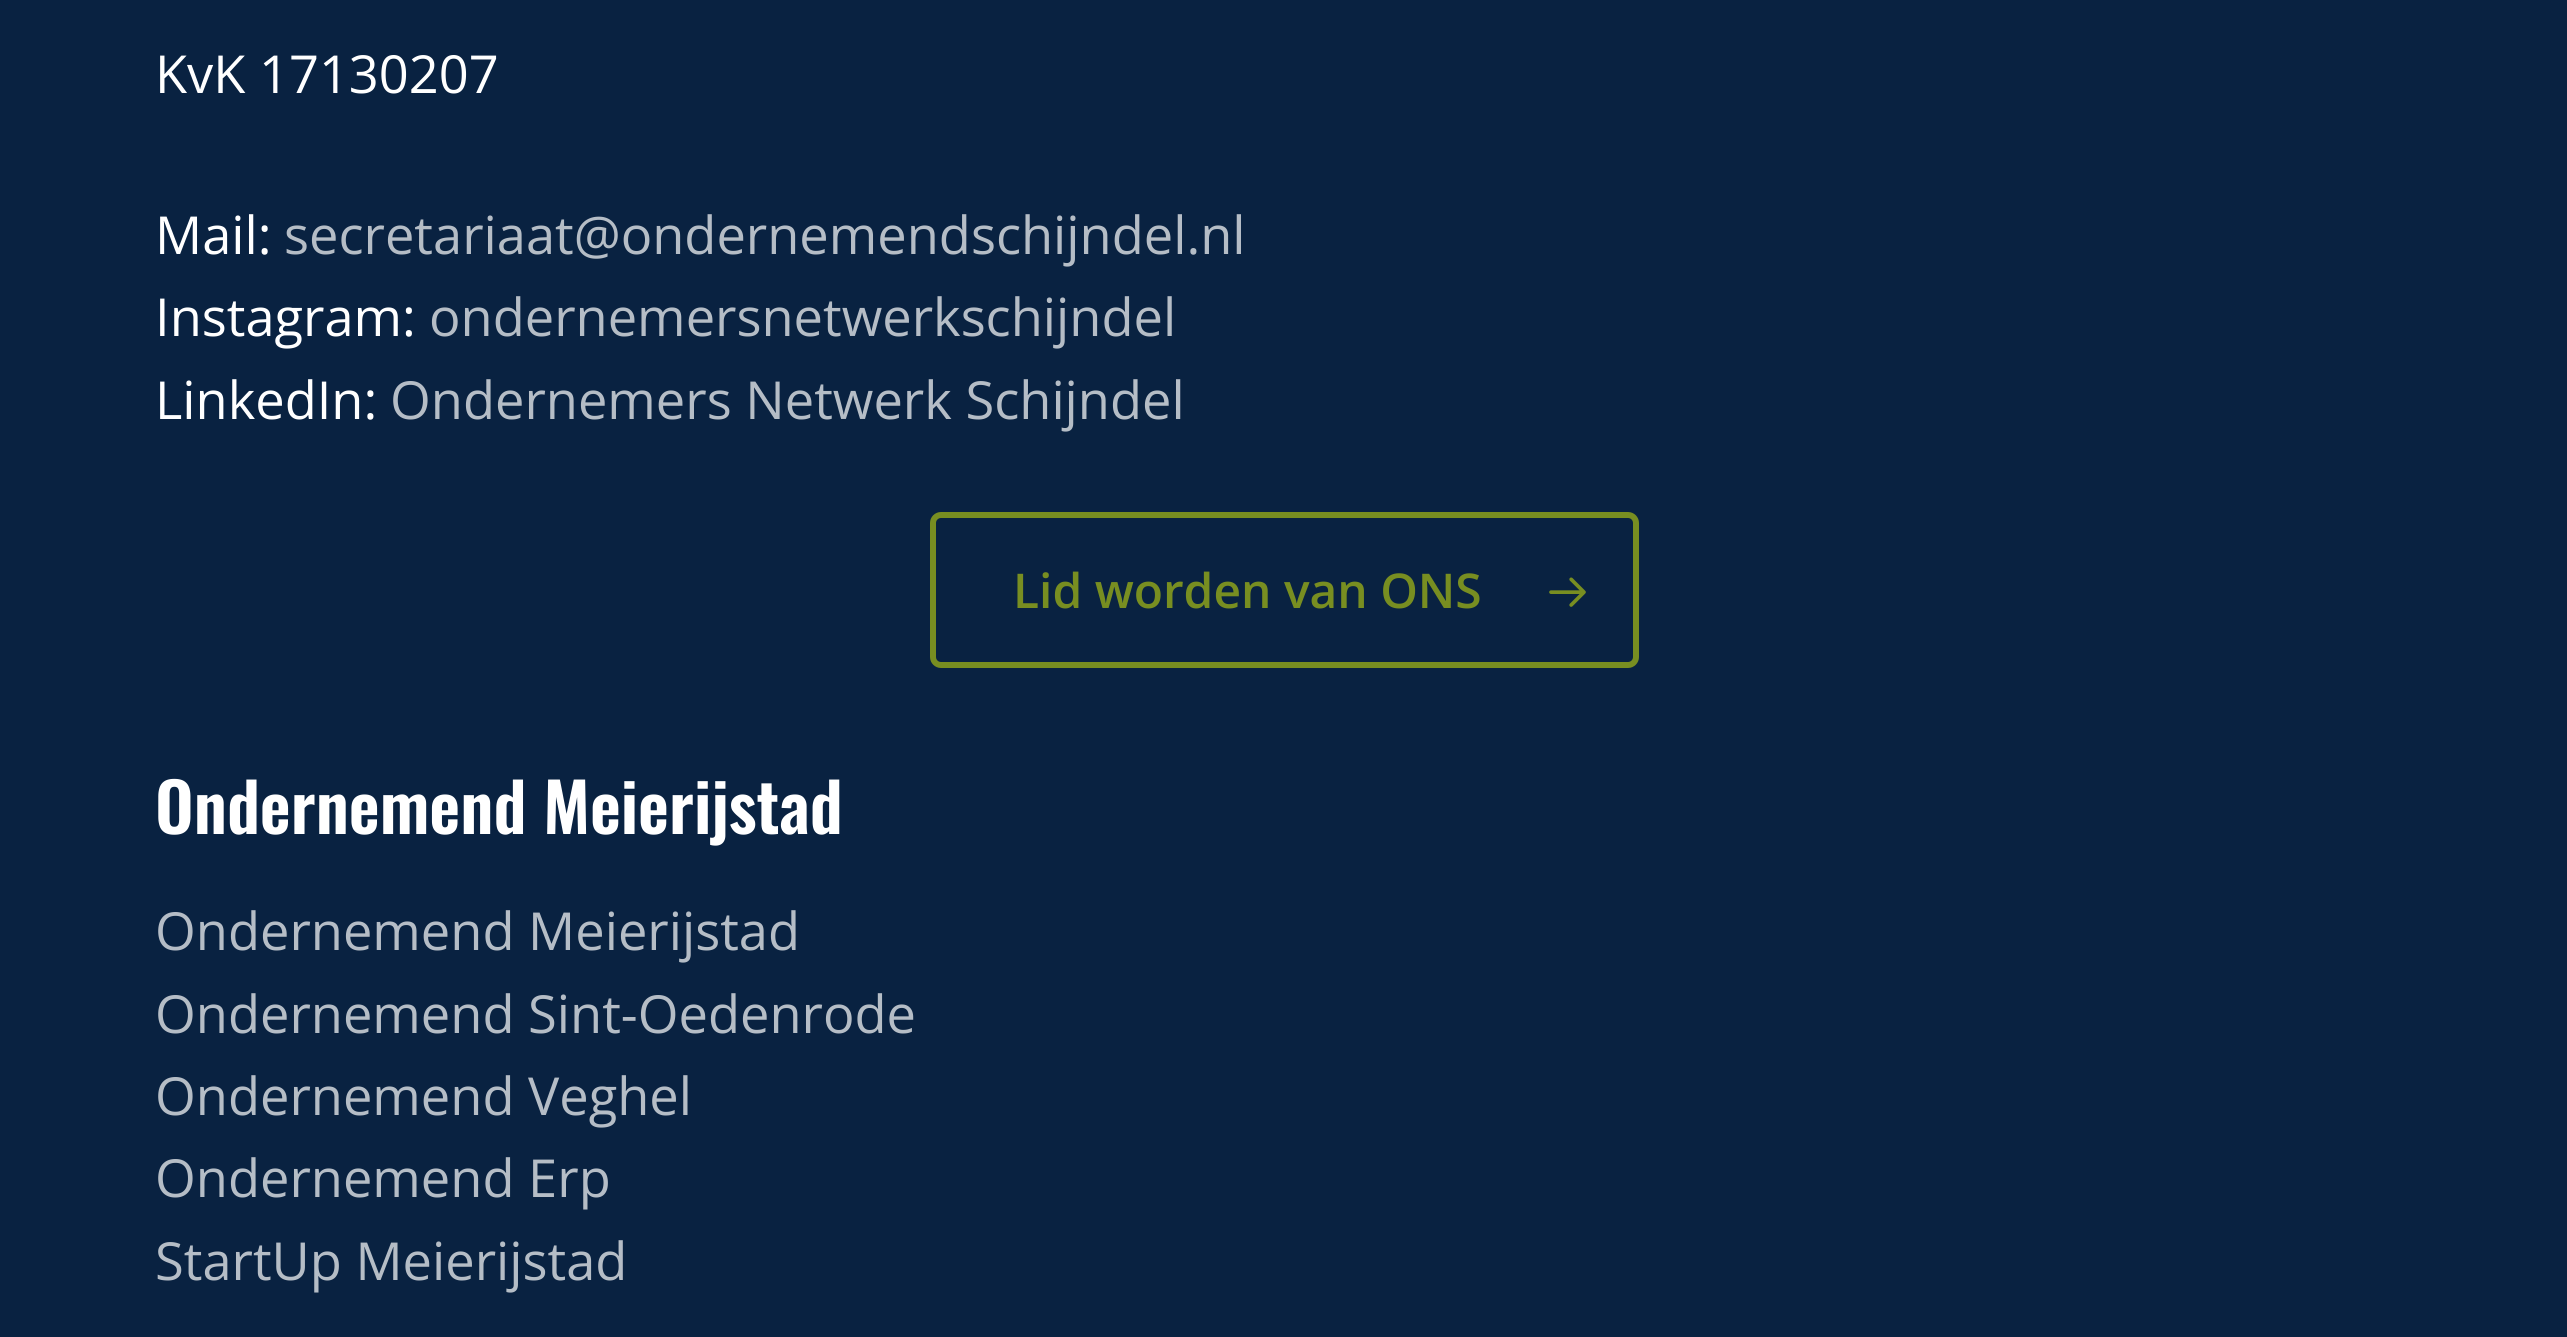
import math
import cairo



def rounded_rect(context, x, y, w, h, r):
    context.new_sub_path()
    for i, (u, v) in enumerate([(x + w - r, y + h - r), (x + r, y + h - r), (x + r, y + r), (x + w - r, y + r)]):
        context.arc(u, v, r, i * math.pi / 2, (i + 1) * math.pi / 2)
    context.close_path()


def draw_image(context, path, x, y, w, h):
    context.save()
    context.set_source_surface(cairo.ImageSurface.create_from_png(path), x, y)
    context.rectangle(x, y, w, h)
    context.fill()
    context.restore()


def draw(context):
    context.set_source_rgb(9 / 255, 34 / 255, 65 / 255)
    context.paint()
    rounded_rect(context, 933, 515, 703, 150, 8)
    context.set_source_rgb(120 / 255, 142 / 255, 33 / 255)
    context.set_line_width(6)
    context.stroke()
    draw_image(context, "images/1.png", 1549, 577, 37, 30)
    context.select_font_face("Open Sans")
    context.set_font_size(52.4)
    context.set_source_rgb(1, 1, 1)
    context.move_to(155, 93)
    context.show_text("KvK 17130207")
    context.move_to(155, 254)
    context.show_text("Mail:")
    context.set_source_rgb(181 / 255, 189 / 255, 198 / 255)
    context.move_to(284, 254)
    context.show_text("secretariaat@ondernemendschijndel.nl")
    context.set_source_rgb(1, 1, 1)
    context.move_to(155, 336)
    context.show_text("Instagram:")
    context.set_source_rgb(181 / 255, 189 / 255, 198 / 255)
    context.move_to(429, 336)
    context.show_text("ondernemersnetwerkschijndel")
    context.set_source_rgb(1, 1, 1)
    context.move_to(155, 419)
    context.show_text("LinkedIn:")
    context.set_source_rgb(181 / 255, 189 / 255, 198 / 255)
    context.move_to(390, 419)
    context.show_text("Ondernemers Netwerk Schijndel")
    context.select_font_face("Open Sans SemiBold")
    context.set_font_size(47.9)
    context.set_source_rgb(120 / 255, 142 / 255, 33 / 255)
    context.move_to(1013, 608)
    context.show_text("Lid worden van ONS")
    context.select_font_face("Oswald SemiBold")
    context.set_font_size(67.25)
    context.set_source_rgb(1, 1, 1)
    context.move_to(155, 834)
    context.show_text("Ondernemend Meierijstad")
    context.select_font_face("Open Sans")
    context.set_font_size(52.4)
    context.set_source_rgb(181 / 255, 189 / 255, 198 / 255)
    context.move_to(155, 950)
    context.show_text("Ondernemend Meierijstad")
    context.move_to(155, 1033)
    context.show_text("Ondernemend Sint-Oedenrode")
    context.move_to(155, 1115)
    context.show_text("Ondernemend Veghel")
    context.move_to(155, 1197)
    context.show_text("Ondernemend Erp")
    context.move_to(155, 1280)
    context.show_text("StartUp Meierijstad")


surface = cairo.ImageSurface(cairo.Format.RGB24, 2567, 1337)
context = cairo.Context(surface)
options = cairo.FontOptions()
options.set_hint_metrics(cairo.HintMetrics.OFF)
options.set_hint_style(cairo.HintStyle.NONE)
context.set_font_options(options)
context.set_miter_limit(4)
draw(context)
surface.write_to_png("out.png")
